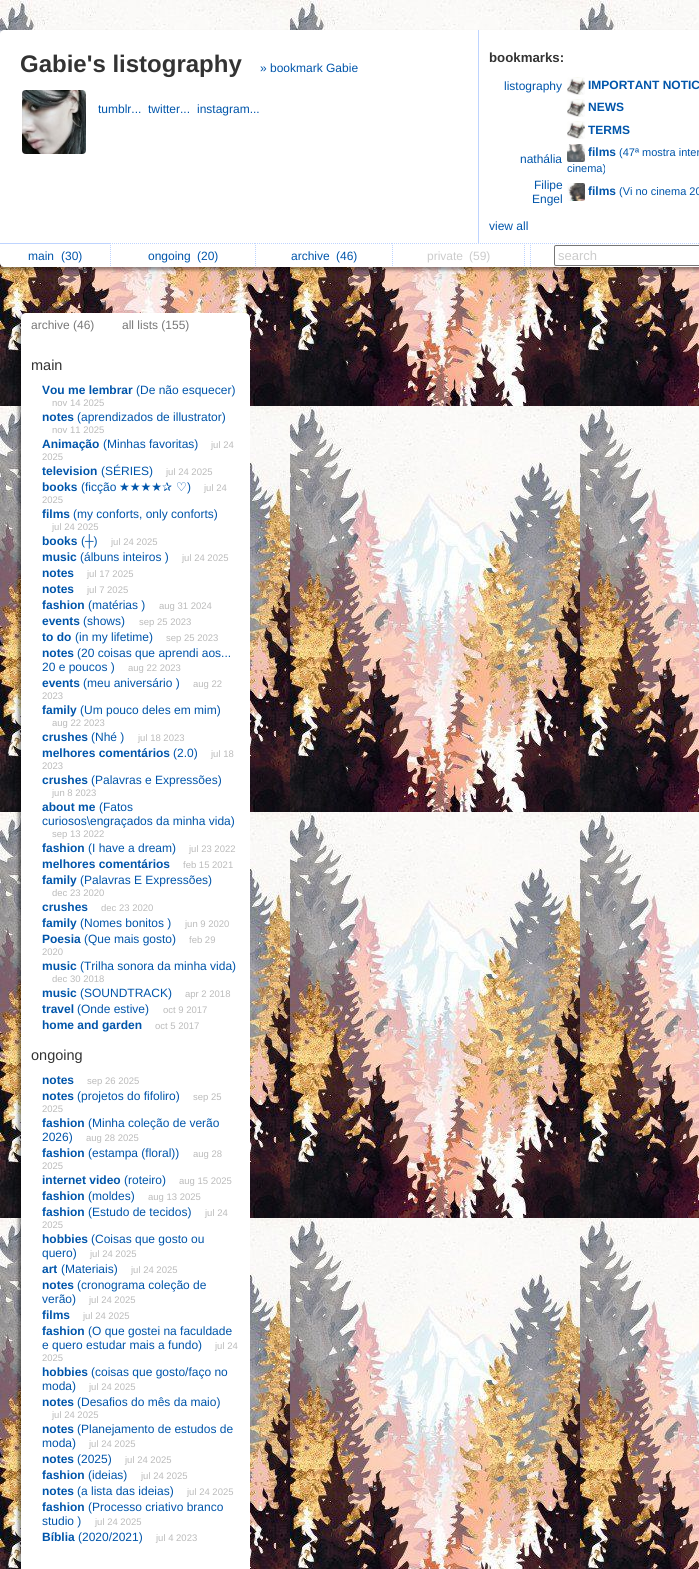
import math
import cairo



def rounded_rect(context, x, y, w, h, r):
    context.new_sub_path()
    for i, (u, v) in enumerate([(x + w - r, y + h - r), (x + r, y + h - r), (x + r, y + r), (x + w - r, y + r)]):
        context.arc(u, v, r, i * math.pi / 2, (i + 1) * math.pi / 2)
    context.close_path()


def draw_shadow(context, x, y, w, h, r, blur, alpha):
    context.push_group_with_content(cairo.Content.ALPHA)
    context.set_operator(cairo.Operator.SOURCE)
    for i in range(15, -16, -2):
        e = blur * i / 6
        if min(w, h) + 2 * e > 0:
            context.set_source_rgba(0, 0, 0, alpha * math.erfc((i - 1) / 8.5) / 2)
            rounded_rect(context, x - e, y - e, w + 2 * e, h + 2 * e, max(0, min(r + e + blur * .6, min(w, h) / 2 + e)))
            context.fill()
    context.mask(context.pop_group())


def draw_image(context, path, x, y, w, h):
    context.save()
    context.set_source_surface(cairo.ImageSurface.create_from_png(path), x, y)
    context.rectangle(x, y, w, h)
    context.fill()
    context.restore()


def draw(context):
    context.set_source_rgb(1, 1, 1)
    context.paint()
    draw_image(context, "images/1.png", 0, 0, 699, 1569)
    context.set_source_rgb(0, 0, 0)
    draw_shadow(context, -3, 33, 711, 237, 4, 1.5, 0.4)
    context.set_source_rgb(1, 1, 1)
    rounded_rect(context, 0, 30, 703, 237, 4)
    context.fill()
    context.set_source_rgb(190 / 255, 212 / 255, 1)
    context.rectangle(478, 30, 1, 214)
    context.fill()
    draw_image(context, "images/2.png", 22, 90, 64, 64)
    draw_image(context, "images/3.png", 567, 77, 18, 18)
    draw_image(context, "images/3.png", 567, 99, 18, 18)
    draw_image(context, "images/3.png", 567, 121, 18, 18)
    draw_image(context, "images/4.png", 567, 144, 18, 18)
    draw_image(context, "images/5.png", 567, 183, 18, 18)
    context.rectangle(0, 243, 110, 1)
    context.fill()
    context.new_path()
    context.move_to(110, 243.5)
    context.line_to(255, 243.5)
    context.set_line_width(1)
    context.set_dash([1, 1])
    context.stroke()
    context.new_path()
    context.move_to(110.5, 243)
    context.line_to(110.5, 267)
    context.stroke()
    context.new_path()
    context.move_to(255, 243.5)
    context.line_to(392, 243.5)
    context.stroke()
    context.new_path()
    context.move_to(255.5, 243)
    context.line_to(255.5, 267)
    context.stroke()
    context.new_path()
    context.move_to(392, 243.5)
    context.line_to(524, 243.5)
    context.stroke()
    context.new_path()
    context.move_to(392.5, 243)
    context.line_to(392.5, 267)
    context.stroke()
    context.new_path()
    context.move_to(524, 243.5)
    context.line_to(525, 243.5)
    context.move_to(526, 243.5)
    context.line_to(527, 243.5)
    context.move_to(528, 243.5)
    context.line_to(529, 243.5)
    context.set_dash([])
    context.stroke()
    context.new_path()
    context.move_to(524.5, 243)
    context.line_to(524.5, 267)
    context.set_dash([1, 1])
    context.stroke()
    context.new_path()
    context.move_to(530, 243.5)
    context.line_to(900, 243.5)
    context.stroke()
    context.new_path()
    context.move_to(530.5, 243)
    context.line_to(530.5, 267)
    context.stroke()
    rounded_rect(context, 554.5, 245.5, 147, 20, 1.5)
    context.set_source_rgb(118 / 255, 118 / 255, 118 / 255)
    context.set_dash([])
    context.stroke()
    context.set_source_rgb(0, 0, 0)
    draw_shadow(context, 18, 316, 229, 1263, 5, 1.5, 0.4)
    context.set_source_rgb(1, 1, 1)
    rounded_rect(context, 21, 313, 229, 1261, 5)
    context.fill()
    context.select_font_face("Liberation Sans", cairo.FontSlant.NORMAL, cairo.FontWeight.BOLD)
    context.set_font_size(24)
    context.set_source_rgb(51 / 255, 51 / 255, 51 / 255)
    context.move_to(20, 72)
    context.show_text("Gabie's listography")
    context.select_font_face("Liberation Sans")
    context.set_font_size(12)
    context.set_source_rgb(0, 85 / 255, 170 / 255)
    context.move_to(260, 72)
    context.show_text("» bookmark Gabie")
    context.move_to(98, 113)
    context.show_text("tumblr...")
    context.move_to(148, 113)
    context.show_text("twitter...")
    context.move_to(197, 113)
    context.show_text("instagram...")
    context.select_font_face("Liberation Sans", cairo.FontSlant.NORMAL, cairo.FontWeight.BOLD)
    context.set_font_size(13.25)
    context.set_source_rgb(51 / 255, 51 / 255, 51 / 255)
    context.move_to(489, 62)
    context.show_text("bookmarks:")
    context.select_font_face("Liberation Sans")
    context.set_font_size(12)
    context.set_source_rgb(0, 85 / 255, 170 / 255)
    context.move_to(504, 90)
    context.show_text("listography")
    context.select_font_face("Liberation Sans", cairo.FontSlant.NORMAL, cairo.FontWeight.BOLD)
    context.move_to(588, 89)
    context.show_text("IMPORTANT NOTIC")
    context.move_to(588, 111)
    context.show_text("NEWS")
    context.move_to(588, 134)
    context.show_text("TERMS")
    context.select_font_face("Liberation Sans")
    context.move_to(520, 163)
    context.show_text("nathália")
    context.select_font_face("Liberation Sans", cairo.FontSlant.NORMAL, cairo.FontWeight.BOLD)
    context.move_to(588, 156)
    context.show_text("films")
    context.select_font_face("Liberation Sans")
    context.set_font_size(11)
    context.move_to(619, 156)
    context.show_text("(47ª mostra inter")
    context.move_to(567, 172)
    context.show_text("cinema)")
    context.set_font_size(12)
    context.move_to(534, 189)
    context.show_text("Filipe")
    context.move_to(532, 203)
    context.show_text("Engel")
    context.select_font_face("Liberation Sans", cairo.FontSlant.NORMAL, cairo.FontWeight.BOLD)
    context.move_to(588, 195)
    context.show_text("films")
    context.select_font_face("Liberation Sans")
    context.set_font_size(11)
    context.move_to(619, 195)
    context.show_text("(Vi no cinema 20")
    context.set_font_size(12)
    context.move_to(489, 230)
    context.show_text("view all")
    context.move_to(28, 260)
    context.show_text("main")
    context.move_to(61, 260)
    context.show_text("(30)")
    context.move_to(148, 260)
    context.show_text("ongoing")
    context.move_to(197, 260)
    context.show_text("(20)")
    context.move_to(291, 260)
    context.show_text("archive")
    context.move_to(336, 260)
    context.show_text("(46)")
    context.set_source_rgb(204 / 255, 204 / 255, 204 / 255)
    context.move_to(427, 260)
    context.show_text("private")
    context.move_to(469, 260)
    context.show_text("(59)")
    context.set_font_size(13)
    context.move_to(558, 260)
    context.show_text("search")
    context.set_font_size(12)
    context.set_source_rgb(119 / 255, 119 / 255, 119 / 255)
    context.move_to(31, 329)
    context.show_text("archive (46)")
    context.move_to(122, 329)
    context.show_text("all lists (155)")
    context.set_font_size(14.5)
    context.set_source_rgb(51 / 255, 51 / 255, 51 / 255)
    context.move_to(31, 370)
    context.show_text("main")
    context.select_font_face("Liberation Sans", cairo.FontSlant.NORMAL, cairo.FontWeight.BOLD)
    context.set_font_size(12)
    context.set_source_rgb(0, 85 / 255, 170 / 255)
    context.move_to(42, 394)
    context.show_text("Vou me lembrar")
    context.select_font_face("Liberation Sans")
    context.move_to(136, 394)
    context.show_text("(De não esquecer)")
    context.set_font_size(9.5)
    context.set_source_rgb(187 / 255, 187 / 255, 187 / 255)
    context.move_to(52, 406)
    context.show_text("nov 14 2025")
    context.select_font_face("Liberation Sans", cairo.FontSlant.NORMAL, cairo.FontWeight.BOLD)
    context.set_font_size(12)
    context.set_source_rgb(0, 85 / 255, 170 / 255)
    context.move_to(42, 421)
    context.show_text("notes")
    context.select_font_face("Liberation Sans")
    context.move_to(77, 421)
    context.show_text("(aprendizados de illustrator)")
    context.set_font_size(9.5)
    context.set_source_rgb(187 / 255, 187 / 255, 187 / 255)
    context.move_to(52, 433)
    context.show_text("nov 11 2025")
    context.select_font_face("Liberation Sans", cairo.FontSlant.NORMAL, cairo.FontWeight.BOLD)
    context.set_font_size(12)
    context.set_source_rgb(0, 85 / 255, 170 / 255)
    context.move_to(42, 448)
    context.show_text("Animação")
    context.select_font_face("Liberation Sans")
    context.move_to(103, 448)
    context.show_text("(Minhas favoritas)")
    context.set_font_size(9.5)
    context.set_source_rgb(187 / 255, 187 / 255, 187 / 255)
    context.move_to(211, 448)
    context.show_text("jul 24")
    context.move_to(42, 460)
    context.show_text("2025")
    context.select_font_face("Liberation Sans", cairo.FontSlant.NORMAL, cairo.FontWeight.BOLD)
    context.set_font_size(12)
    context.set_source_rgb(0, 85 / 255, 170 / 255)
    context.move_to(42, 475)
    context.show_text("television")
    context.select_font_face("Liberation Sans")
    context.move_to(101, 475)
    context.show_text("(SÉRIES)")
    context.set_font_size(9.5)
    context.set_source_rgb(187 / 255, 187 / 255, 187 / 255)
    context.move_to(166, 475)
    context.show_text("jul 24 2025")
    context.select_font_face("Liberation Sans", cairo.FontSlant.NORMAL, cairo.FontWeight.BOLD)
    context.set_font_size(12)
    context.set_source_rgb(0, 85 / 255, 170 / 255)
    context.move_to(42, 491)
    context.show_text("books")
    context.select_font_face("Liberation Sans")
    context.move_to(81, 491)
    context.show_text("(ficção")
    context.select_font_face("DejaVu Sans")
    context.move_to(119, 491)
    context.show_text("★★★★✰ ♡")
    context.select_font_face("Liberation Sans")
    context.move_to(187, 491)
    context.show_text(")")
    context.set_font_size(9.5)
    context.set_source_rgb(187 / 255, 187 / 255, 187 / 255)
    context.move_to(204, 491)
    context.show_text("jul 24")
    context.move_to(42, 503)
    context.show_text("2025")
    context.select_font_face("Liberation Sans", cairo.FontSlant.NORMAL, cairo.FontWeight.BOLD)
    context.set_font_size(12)
    context.set_source_rgb(0, 85 / 255, 170 / 255)
    context.move_to(42, 518)
    context.show_text("films")
    context.select_font_face("Liberation Sans")
    context.move_to(73, 518)
    context.show_text("(my conforts, only conforts)")
    context.set_font_size(9.5)
    context.set_source_rgb(187 / 255, 187 / 255, 187 / 255)
    context.move_to(52, 530)
    context.show_text("jul 24 2025")
    context.select_font_face("Liberation Sans", cairo.FontSlant.NORMAL, cairo.FontWeight.BOLD)
    context.set_font_size(12)
    context.set_source_rgb(0, 85 / 255, 170 / 255)
    context.move_to(42, 545)
    context.show_text("books")
    context.select_font_face("Liberation Sans")
    context.move_to(81, 545)
    context.show_text("(┼)")
    context.set_font_size(9.5)
    context.set_source_rgb(187 / 255, 187 / 255, 187 / 255)
    context.move_to(111, 545)
    context.show_text("jul 24 2025")
    context.select_font_face("Liberation Sans", cairo.FontSlant.NORMAL, cairo.FontWeight.BOLD)
    context.set_font_size(12)
    context.set_source_rgb(0, 85 / 255, 170 / 255)
    context.move_to(42, 561)
    context.show_text("music")
    context.select_font_face("Liberation Sans")
    context.move_to(80, 561)
    context.show_text("(álbuns inteiros )")
    context.set_font_size(9.5)
    context.set_source_rgb(187 / 255, 187 / 255, 187 / 255)
    context.move_to(182, 561)
    context.show_text("jul 24 2025")
    context.select_font_face("Liberation Sans", cairo.FontSlant.NORMAL, cairo.FontWeight.BOLD)
    context.set_font_size(12)
    context.set_source_rgb(0, 85 / 255, 170 / 255)
    context.move_to(42, 577)
    context.show_text("notes")
    context.select_font_face("Liberation Sans")
    context.set_font_size(9.5)
    context.set_source_rgb(187 / 255, 187 / 255, 187 / 255)
    context.move_to(87, 577)
    context.show_text("jul 17 2025")
    context.select_font_face("Liberation Sans", cairo.FontSlant.NORMAL, cairo.FontWeight.BOLD)
    context.set_font_size(12)
    context.set_source_rgb(0, 85 / 255, 170 / 255)
    context.move_to(42, 593)
    context.show_text("notes")
    context.select_font_face("Liberation Sans")
    context.set_font_size(9.5)
    context.set_source_rgb(187 / 255, 187 / 255, 187 / 255)
    context.move_to(87, 593)
    context.show_text("jul 7 2025")
    context.select_font_face("Liberation Sans", cairo.FontSlant.NORMAL, cairo.FontWeight.BOLD)
    context.set_font_size(12)
    context.set_source_rgb(0, 85 / 255, 170 / 255)
    context.move_to(42, 609)
    context.show_text("fashion")
    context.select_font_face("Liberation Sans")
    context.move_to(88, 609)
    context.show_text("(matérias )")
    context.set_font_size(9.5)
    context.set_source_rgb(187 / 255, 187 / 255, 187 / 255)
    context.move_to(159, 609)
    context.show_text("aug 31 2024")
    context.select_font_face("Liberation Sans", cairo.FontSlant.NORMAL, cairo.FontWeight.BOLD)
    context.set_font_size(12)
    context.set_source_rgb(0, 85 / 255, 170 / 255)
    context.move_to(42, 625)
    context.show_text("events")
    context.select_font_face("Liberation Sans")
    context.move_to(83, 625)
    context.show_text("(shows)")
    context.set_font_size(9.5)
    context.set_source_rgb(187 / 255, 187 / 255, 187 / 255)
    context.move_to(139, 625)
    context.show_text("sep 25 2023")
    context.select_font_face("Liberation Sans", cairo.FontSlant.NORMAL, cairo.FontWeight.BOLD)
    context.set_font_size(12)
    context.set_source_rgb(0, 85 / 255, 170 / 255)
    context.move_to(42, 641)
    context.show_text("to do")
    context.select_font_face("Liberation Sans")
    context.move_to(75, 641)
    context.show_text("(in my lifetime)")
    context.set_font_size(9.5)
    context.set_source_rgb(187 / 255, 187 / 255, 187 / 255)
    context.move_to(166, 641)
    context.show_text("sep 25 2023")
    context.select_font_face("Liberation Sans", cairo.FontSlant.NORMAL, cairo.FontWeight.BOLD)
    context.set_font_size(12)
    context.set_source_rgb(0, 85 / 255, 170 / 255)
    context.move_to(42, 657)
    context.show_text("notes")
    context.select_font_face("Liberation Sans")
    context.move_to(77, 657)
    context.show_text("(20 coisas que aprendi aos...")
    context.move_to(42, 671)
    context.show_text("20 e poucos )")
    context.set_font_size(9.5)
    context.set_source_rgb(187 / 255, 187 / 255, 187 / 255)
    context.move_to(128, 671)
    context.show_text("aug 22 2023")
    context.select_font_face("Liberation Sans", cairo.FontSlant.NORMAL, cairo.FontWeight.BOLD)
    context.set_font_size(12)
    context.set_source_rgb(0, 85 / 255, 170 / 255)
    context.move_to(42, 687)
    context.show_text("events")
    context.select_font_face("Liberation Sans")
    context.move_to(83, 687)
    context.show_text("(meu aniversário )")
    context.set_font_size(9.5)
    context.set_source_rgb(187 / 255, 187 / 255, 187 / 255)
    context.move_to(193, 687)
    context.show_text("aug 22")
    context.move_to(42, 699)
    context.show_text("2023")
    context.select_font_face("Liberation Sans", cairo.FontSlant.NORMAL, cairo.FontWeight.BOLD)
    context.set_font_size(12)
    context.set_source_rgb(0, 85 / 255, 170 / 255)
    context.move_to(42, 714)
    context.show_text("family")
    context.select_font_face("Liberation Sans")
    context.move_to(80, 714)
    context.show_text("(Um pouco deles em mim)")
    context.set_font_size(9.5)
    context.set_source_rgb(187 / 255, 187 / 255, 187 / 255)
    context.move_to(52, 726)
    context.show_text("aug 22 2023")
    context.select_font_face("Liberation Sans", cairo.FontSlant.NORMAL, cairo.FontWeight.BOLD)
    context.set_font_size(12)
    context.set_source_rgb(0, 85 / 255, 170 / 255)
    context.move_to(42, 741)
    context.show_text("crushes")
    context.select_font_face("Liberation Sans")
    context.move_to(91, 741)
    context.show_text("(Nhé )")
    context.set_font_size(9.5)
    context.set_source_rgb(187 / 255, 187 / 255, 187 / 255)
    context.move_to(138, 741)
    context.show_text("jul 18 2023")
    context.select_font_face("Liberation Sans", cairo.FontSlant.NORMAL, cairo.FontWeight.BOLD)
    context.set_font_size(12)
    context.set_source_rgb(0, 85 / 255, 170 / 255)
    context.move_to(42, 757)
    context.show_text("melhores comentários")
    context.select_font_face("Liberation Sans")
    context.move_to(173, 757)
    context.show_text("(2.0)")
    context.set_font_size(9.5)
    context.set_source_rgb(187 / 255, 187 / 255, 187 / 255)
    context.move_to(211, 757)
    context.show_text("jul 18")
    context.move_to(42, 769)
    context.show_text("2023")
    context.select_font_face("Liberation Sans", cairo.FontSlant.NORMAL, cairo.FontWeight.BOLD)
    context.set_font_size(12)
    context.set_source_rgb(0, 85 / 255, 170 / 255)
    context.move_to(42, 784)
    context.show_text("crushes")
    context.select_font_face("Liberation Sans")
    context.move_to(91, 784)
    context.show_text("(Palavras e Expressões)")
    context.set_font_size(9.5)
    context.set_source_rgb(187 / 255, 187 / 255, 187 / 255)
    context.move_to(52, 796)
    context.show_text("jun 8 2023")
    context.select_font_face("Liberation Sans", cairo.FontSlant.NORMAL, cairo.FontWeight.BOLD)
    context.set_font_size(12)
    context.set_source_rgb(0, 85 / 255, 170 / 255)
    context.move_to(42, 811)
    context.show_text("about me")
    context.select_font_face("Liberation Sans")
    context.move_to(99, 811)
    context.show_text("(Fatos")
    context.move_to(42, 825)
    context.show_text("curiosos\\engraçados da minha vida)")
    context.set_font_size(9.5)
    context.set_source_rgb(187 / 255, 187 / 255, 187 / 255)
    context.move_to(52, 837)
    context.show_text("sep 13 2022")
    context.select_font_face("Liberation Sans", cairo.FontSlant.NORMAL, cairo.FontWeight.BOLD)
    context.set_font_size(12)
    context.set_source_rgb(0, 85 / 255, 170 / 255)
    context.move_to(42, 852)
    context.show_text("fashion")
    context.select_font_face("Liberation Sans")
    context.move_to(88, 852)
    context.show_text("(I have a dream)")
    context.set_font_size(9.5)
    context.set_source_rgb(187 / 255, 187 / 255, 187 / 255)
    context.move_to(189, 852)
    context.show_text("jul 23 2022")
    context.select_font_face("Liberation Sans", cairo.FontSlant.NORMAL, cairo.FontWeight.BOLD)
    context.set_font_size(12)
    context.set_source_rgb(0, 85 / 255, 170 / 255)
    context.move_to(42, 868)
    context.show_text("melhores comentários")
    context.select_font_face("Liberation Sans")
    context.set_font_size(9.5)
    context.set_source_rgb(187 / 255, 187 / 255, 187 / 255)
    context.move_to(183, 868)
    context.show_text("feb 15 2021")
    context.select_font_face("Liberation Sans", cairo.FontSlant.NORMAL, cairo.FontWeight.BOLD)
    context.set_font_size(12)
    context.set_source_rgb(0, 85 / 255, 170 / 255)
    context.move_to(42, 884)
    context.show_text("family")
    context.select_font_face("Liberation Sans")
    context.move_to(80, 884)
    context.show_text("(Palavras E Expressões)")
    context.set_font_size(9.5)
    context.set_source_rgb(187 / 255, 187 / 255, 187 / 255)
    context.move_to(52, 896)
    context.show_text("dec 23 2020")
    context.select_font_face("Liberation Sans", cairo.FontSlant.NORMAL, cairo.FontWeight.BOLD)
    context.set_font_size(12)
    context.set_source_rgb(0, 85 / 255, 170 / 255)
    context.move_to(42, 911)
    context.show_text("crushes")
    context.select_font_face("Liberation Sans")
    context.set_font_size(9.5)
    context.set_source_rgb(187 / 255, 187 / 255, 187 / 255)
    context.move_to(101, 911)
    context.show_text("dec 23 2020")
    context.select_font_face("Liberation Sans", cairo.FontSlant.NORMAL, cairo.FontWeight.BOLD)
    context.set_font_size(12)
    context.set_source_rgb(0, 85 / 255, 170 / 255)
    context.move_to(42, 927)
    context.show_text("family")
    context.select_font_face("Liberation Sans")
    context.move_to(80, 927)
    context.show_text("(Nomes bonitos )")
    context.set_font_size(9.5)
    context.set_source_rgb(187 / 255, 187 / 255, 187 / 255)
    context.move_to(185, 927)
    context.show_text("jun 9 2020")
    context.select_font_face("Liberation Sans", cairo.FontSlant.NORMAL, cairo.FontWeight.BOLD)
    context.set_font_size(12)
    context.set_source_rgb(0, 85 / 255, 170 / 255)
    context.move_to(42, 943)
    context.show_text("Poesia")
    context.select_font_face("Liberation Sans")
    context.move_to(84, 943)
    context.show_text("(Que mais gosto)")
    context.set_font_size(9.5)
    context.set_source_rgb(187 / 255, 187 / 255, 187 / 255)
    context.move_to(189, 943)
    context.show_text("feb 29")
    context.move_to(42, 955)
    context.show_text("2020")
    context.select_font_face("Liberation Sans", cairo.FontSlant.NORMAL, cairo.FontWeight.BOLD)
    context.set_font_size(12)
    context.set_source_rgb(0, 85 / 255, 170 / 255)
    context.move_to(42, 970)
    context.show_text("music")
    context.select_font_face("Liberation Sans")
    context.move_to(80, 970)
    context.show_text("(Trilha sonora da minha vida)")
    context.set_font_size(9.5)
    context.set_source_rgb(187 / 255, 187 / 255, 187 / 255)
    context.move_to(52, 982)
    context.show_text("dec 30 2018")
    context.select_font_face("Liberation Sans", cairo.FontSlant.NORMAL, cairo.FontWeight.BOLD)
    context.set_font_size(12)
    context.set_source_rgb(0, 85 / 255, 170 / 255)
    context.move_to(42, 997)
    context.show_text("music")
    context.select_font_face("Liberation Sans")
    context.move_to(80, 997)
    context.show_text("(SOUNDTRACK)")
    context.set_font_size(9.5)
    context.set_source_rgb(187 / 255, 187 / 255, 187 / 255)
    context.move_to(185, 997)
    context.show_text("apr 2 2018")
    context.select_font_face("Liberation Sans", cairo.FontSlant.NORMAL, cairo.FontWeight.BOLD)
    context.set_font_size(12)
    context.set_source_rgb(0, 85 / 255, 170 / 255)
    context.move_to(42, 1013)
    context.show_text("travel")
    context.select_font_face("Liberation Sans")
    context.move_to(77, 1013)
    context.show_text("(Onde estive)")
    context.set_font_size(9.5)
    context.set_source_rgb(187 / 255, 187 / 255, 187 / 255)
    context.move_to(163, 1013)
    context.show_text("oct 9 2017")
    context.select_font_face("Liberation Sans", cairo.FontSlant.NORMAL, cairo.FontWeight.BOLD)
    context.set_font_size(12)
    context.set_source_rgb(0, 85 / 255, 170 / 255)
    context.move_to(42, 1029)
    context.show_text("home and garden")
    context.select_font_face("Liberation Sans")
    context.set_font_size(9.5)
    context.set_source_rgb(187 / 255, 187 / 255, 187 / 255)
    context.move_to(155, 1029)
    context.show_text("oct 5 2017")
    context.set_font_size(14.5)
    context.set_source_rgb(51 / 255, 51 / 255, 51 / 255)
    context.move_to(31, 1060)
    context.show_text("ongoing")
    context.select_font_face("Liberation Sans", cairo.FontSlant.NORMAL, cairo.FontWeight.BOLD)
    context.set_font_size(12)
    context.set_source_rgb(0, 85 / 255, 170 / 255)
    context.move_to(42, 1084)
    context.show_text("notes")
    context.select_font_face("Liberation Sans")
    context.set_font_size(9.5)
    context.set_source_rgb(187 / 255, 187 / 255, 187 / 255)
    context.move_to(87, 1084)
    context.show_text("sep 26 2025")
    context.select_font_face("Liberation Sans", cairo.FontSlant.NORMAL, cairo.FontWeight.BOLD)
    context.set_font_size(12)
    context.set_source_rgb(0, 85 / 255, 170 / 255)
    context.move_to(42, 1100)
    context.show_text("notes")
    context.select_font_face("Liberation Sans")
    context.move_to(77, 1100)
    context.show_text("(projetos do fifoliro)")
    context.set_font_size(9.5)
    context.set_source_rgb(187 / 255, 187 / 255, 187 / 255)
    context.move_to(193, 1100)
    context.show_text("sep 25")
    context.move_to(42, 1112)
    context.show_text("2025")
    context.select_font_face("Liberation Sans", cairo.FontSlant.NORMAL, cairo.FontWeight.BOLD)
    context.set_font_size(12)
    context.set_source_rgb(0, 85 / 255, 170 / 255)
    context.move_to(42, 1127)
    context.show_text("fashion")
    context.select_font_face("Liberation Sans")
    context.move_to(88, 1127)
    context.show_text("(Minha coleção de verão")
    context.move_to(42, 1141)
    context.show_text("2026)")
    context.set_font_size(9.5)
    context.set_source_rgb(187 / 255, 187 / 255, 187 / 255)
    context.move_to(86, 1141)
    context.show_text("aug 28 2025")
    context.select_font_face("Liberation Sans", cairo.FontSlant.NORMAL, cairo.FontWeight.BOLD)
    context.set_font_size(12)
    context.set_source_rgb(0, 85 / 255, 170 / 255)
    context.move_to(42, 1157)
    context.show_text("fashion")
    context.select_font_face("Liberation Sans")
    context.move_to(88, 1157)
    context.show_text("(estampa (floral))")
    context.set_font_size(9.5)
    context.set_source_rgb(187 / 255, 187 / 255, 187 / 255)
    context.move_to(193, 1157)
    context.show_text("aug 28")
    context.move_to(42, 1169)
    context.show_text("2025")
    context.select_font_face("Liberation Sans", cairo.FontSlant.NORMAL, cairo.FontWeight.BOLD)
    context.set_font_size(12)
    context.set_source_rgb(0, 85 / 255, 170 / 255)
    context.move_to(42, 1184)
    context.show_text("internet video")
    context.select_font_face("Liberation Sans")
    context.move_to(124, 1184)
    context.show_text("(roteiro)")
    context.set_font_size(9.5)
    context.set_source_rgb(187 / 255, 187 / 255, 187 / 255)
    context.move_to(179, 1184)
    context.show_text("aug 15 2025")
    context.select_font_face("Liberation Sans", cairo.FontSlant.NORMAL, cairo.FontWeight.BOLD)
    context.set_font_size(12)
    context.set_source_rgb(0, 85 / 255, 170 / 255)
    context.move_to(42, 1200)
    context.show_text("fashion")
    context.select_font_face("Liberation Sans")
    context.move_to(88, 1200)
    context.show_text("(moldes)")
    context.set_font_size(9.5)
    context.set_source_rgb(187 / 255, 187 / 255, 187 / 255)
    context.move_to(148, 1200)
    context.show_text("aug 13 2025")
    context.select_font_face("Liberation Sans", cairo.FontSlant.NORMAL, cairo.FontWeight.BOLD)
    context.set_font_size(12)
    context.set_source_rgb(0, 85 / 255, 170 / 255)
    context.move_to(42, 1216)
    context.show_text("fashion")
    context.select_font_face("Liberation Sans")
    context.move_to(88, 1216)
    context.show_text("(Estudo de tecidos)")
    context.set_font_size(9.5)
    context.set_source_rgb(187 / 255, 187 / 255, 187 / 255)
    context.move_to(205, 1216)
    context.show_text("jul 24")
    context.move_to(42, 1228)
    context.show_text("2025")
    context.select_font_face("Liberation Sans", cairo.FontSlant.NORMAL, cairo.FontWeight.BOLD)
    context.set_font_size(12)
    context.set_source_rgb(0, 85 / 255, 170 / 255)
    context.move_to(42, 1243)
    context.show_text("hobbies")
    context.select_font_face("Liberation Sans")
    context.move_to(91, 1243)
    context.show_text("(Coisas que gosto ou")
    context.move_to(42, 1257)
    context.show_text("quero)")
    context.set_font_size(9.5)
    context.set_source_rgb(187 / 255, 187 / 255, 187 / 255)
    context.move_to(90, 1257)
    context.show_text("jul 24 2025")
    context.select_font_face("Liberation Sans", cairo.FontSlant.NORMAL, cairo.FontWeight.BOLD)
    context.set_font_size(12)
    context.set_source_rgb(0, 85 / 255, 170 / 255)
    context.move_to(42, 1273)
    context.show_text("art")
    context.select_font_face("Liberation Sans")
    context.move_to(61, 1273)
    context.show_text("(Materiais)")
    context.set_font_size(9.5)
    context.set_source_rgb(187 / 255, 187 / 255, 187 / 255)
    context.move_to(131, 1273)
    context.show_text("jul 24 2025")
    context.select_font_face("Liberation Sans", cairo.FontSlant.NORMAL, cairo.FontWeight.BOLD)
    context.set_font_size(12)
    context.set_source_rgb(0, 85 / 255, 170 / 255)
    context.move_to(42, 1289)
    context.show_text("notes")
    context.select_font_face("Liberation Sans")
    context.move_to(77, 1289)
    context.show_text("(cronograma coleção de")
    context.move_to(42, 1303)
    context.show_text("verão)")
    context.set_font_size(9.5)
    context.set_source_rgb(187 / 255, 187 / 255, 187 / 255)
    context.move_to(89, 1303)
    context.show_text("jul 24 2025")
    context.select_font_face("Liberation Sans", cairo.FontSlant.NORMAL, cairo.FontWeight.BOLD)
    context.set_font_size(12)
    context.set_source_rgb(0, 85 / 255, 170 / 255)
    context.move_to(42, 1319)
    context.show_text("films")
    context.select_font_face("Liberation Sans")
    context.set_font_size(9.5)
    context.set_source_rgb(187 / 255, 187 / 255, 187 / 255)
    context.move_to(83, 1319)
    context.show_text("jul 24 2025")
    context.select_font_face("Liberation Sans", cairo.FontSlant.NORMAL, cairo.FontWeight.BOLD)
    context.set_font_size(12)
    context.set_source_rgb(0, 85 / 255, 170 / 255)
    context.move_to(42, 1335)
    context.show_text("fashion")
    context.select_font_face("Liberation Sans")
    context.move_to(88, 1335)
    context.show_text("(O que gostei na faculdade")
    context.move_to(42, 1349)
    context.show_text("e quero estudar mais a fundo)")
    context.set_font_size(9.5)
    context.set_source_rgb(187 / 255, 187 / 255, 187 / 255)
    context.move_to(215, 1349)
    context.show_text("jul 24")
    context.move_to(42, 1361)
    context.show_text("2025")
    context.select_font_face("Liberation Sans", cairo.FontSlant.NORMAL, cairo.FontWeight.BOLD)
    context.set_font_size(12)
    context.set_source_rgb(0, 85 / 255, 170 / 255)
    context.move_to(42, 1376)
    context.show_text("hobbies")
    context.select_font_face("Liberation Sans")
    context.move_to(91, 1376)
    context.show_text("(coisas que gosto/faço no")
    context.move_to(42, 1390)
    context.show_text("moda)")
    context.set_font_size(9.5)
    context.set_source_rgb(187 / 255, 187 / 255, 187 / 255)
    context.move_to(89, 1390)
    context.show_text("jul 24 2025")
    context.select_font_face("Liberation Sans", cairo.FontSlant.NORMAL, cairo.FontWeight.BOLD)
    context.set_font_size(12)
    context.set_source_rgb(0, 85 / 255, 170 / 255)
    context.move_to(42, 1406)
    context.show_text("notes")
    context.select_font_face("Liberation Sans")
    context.move_to(77, 1406)
    context.show_text("(Desafios do mês da maio)")
    context.set_font_size(9.5)
    context.set_source_rgb(187 / 255, 187 / 255, 187 / 255)
    context.move_to(52, 1418)
    context.show_text("jul 24 2025")
    context.select_font_face("Liberation Sans", cairo.FontSlant.NORMAL, cairo.FontWeight.BOLD)
    context.set_font_size(12)
    context.set_source_rgb(0, 85 / 255, 170 / 255)
    context.move_to(42, 1433)
    context.show_text("notes")
    context.select_font_face("Liberation Sans")
    context.move_to(77, 1433)
    context.show_text("(Planejamento de estudos de")
    context.move_to(42, 1447)
    context.show_text("moda)")
    context.set_font_size(9.5)
    context.set_source_rgb(187 / 255, 187 / 255, 187 / 255)
    context.move_to(89, 1447)
    context.show_text("jul 24 2025")
    context.select_font_face("Liberation Sans", cairo.FontSlant.NORMAL, cairo.FontWeight.BOLD)
    context.set_font_size(12)
    context.set_source_rgb(0, 85 / 255, 170 / 255)
    context.move_to(42, 1463)
    context.show_text("notes")
    context.select_font_face("Liberation Sans")
    context.move_to(77, 1463)
    context.show_text("(2025)")
    context.set_font_size(9.5)
    context.set_source_rgb(187 / 255, 187 / 255, 187 / 255)
    context.move_to(125, 1463)
    context.show_text("jul 24 2025")
    context.select_font_face("Liberation Sans", cairo.FontSlant.NORMAL, cairo.FontWeight.BOLD)
    context.set_font_size(12)
    context.set_source_rgb(0, 85 / 255, 170 / 255)
    context.move_to(42, 1479)
    context.show_text("fashion")
    context.select_font_face("Liberation Sans")
    context.move_to(88, 1479)
    context.show_text("(ideias)")
    context.set_font_size(9.5)
    context.set_source_rgb(187 / 255, 187 / 255, 187 / 255)
    context.move_to(141, 1479)
    context.show_text("jul 24 2025")
    context.select_font_face("Liberation Sans", cairo.FontSlant.NORMAL, cairo.FontWeight.BOLD)
    context.set_font_size(12)
    context.set_source_rgb(0, 85 / 255, 170 / 255)
    context.move_to(42, 1495)
    context.show_text("notes")
    context.select_font_face("Liberation Sans")
    context.move_to(77, 1495)
    context.show_text("(a lista das ideias)")
    context.set_font_size(9.5)
    context.set_source_rgb(187 / 255, 187 / 255, 187 / 255)
    context.move_to(187, 1495)
    context.show_text("jul 24 2025")
    context.select_font_face("Liberation Sans", cairo.FontSlant.NORMAL, cairo.FontWeight.BOLD)
    context.set_font_size(12)
    context.set_source_rgb(0, 85 / 255, 170 / 255)
    context.move_to(42, 1511)
    context.show_text("fashion")
    context.select_font_face("Liberation Sans")
    context.move_to(88, 1511)
    context.show_text("(Processo criativo branco")
    context.move_to(42, 1525)
    context.show_text("studio )")
    context.set_font_size(9.5)
    context.set_source_rgb(187 / 255, 187 / 255, 187 / 255)
    context.move_to(95, 1525)
    context.show_text("jul 24 2025")
    context.select_font_face("Liberation Sans", cairo.FontSlant.NORMAL, cairo.FontWeight.BOLD)
    context.set_font_size(12)
    context.set_source_rgb(0, 85 / 255, 170 / 255)
    context.move_to(42, 1541)
    context.show_text("Bíblia")
    context.select_font_face("Liberation Sans")
    context.move_to(78, 1541)
    context.show_text("(2020/2021)")
    context.set_font_size(9.5)
    context.set_source_rgb(187 / 255, 187 / 255, 187 / 255)
    context.move_to(156, 1541)
    context.show_text("jul 4 2023")


surface = cairo.ImageSurface(cairo.Format.RGB24, 699, 1569)
context = cairo.Context(surface)
options = cairo.FontOptions()
options.set_hint_metrics(cairo.HintMetrics.OFF)
options.set_hint_style(cairo.HintStyle.NONE)
context.set_font_options(options)
context.set_miter_limit(4)
draw(context)
surface.write_to_png("out.png")
